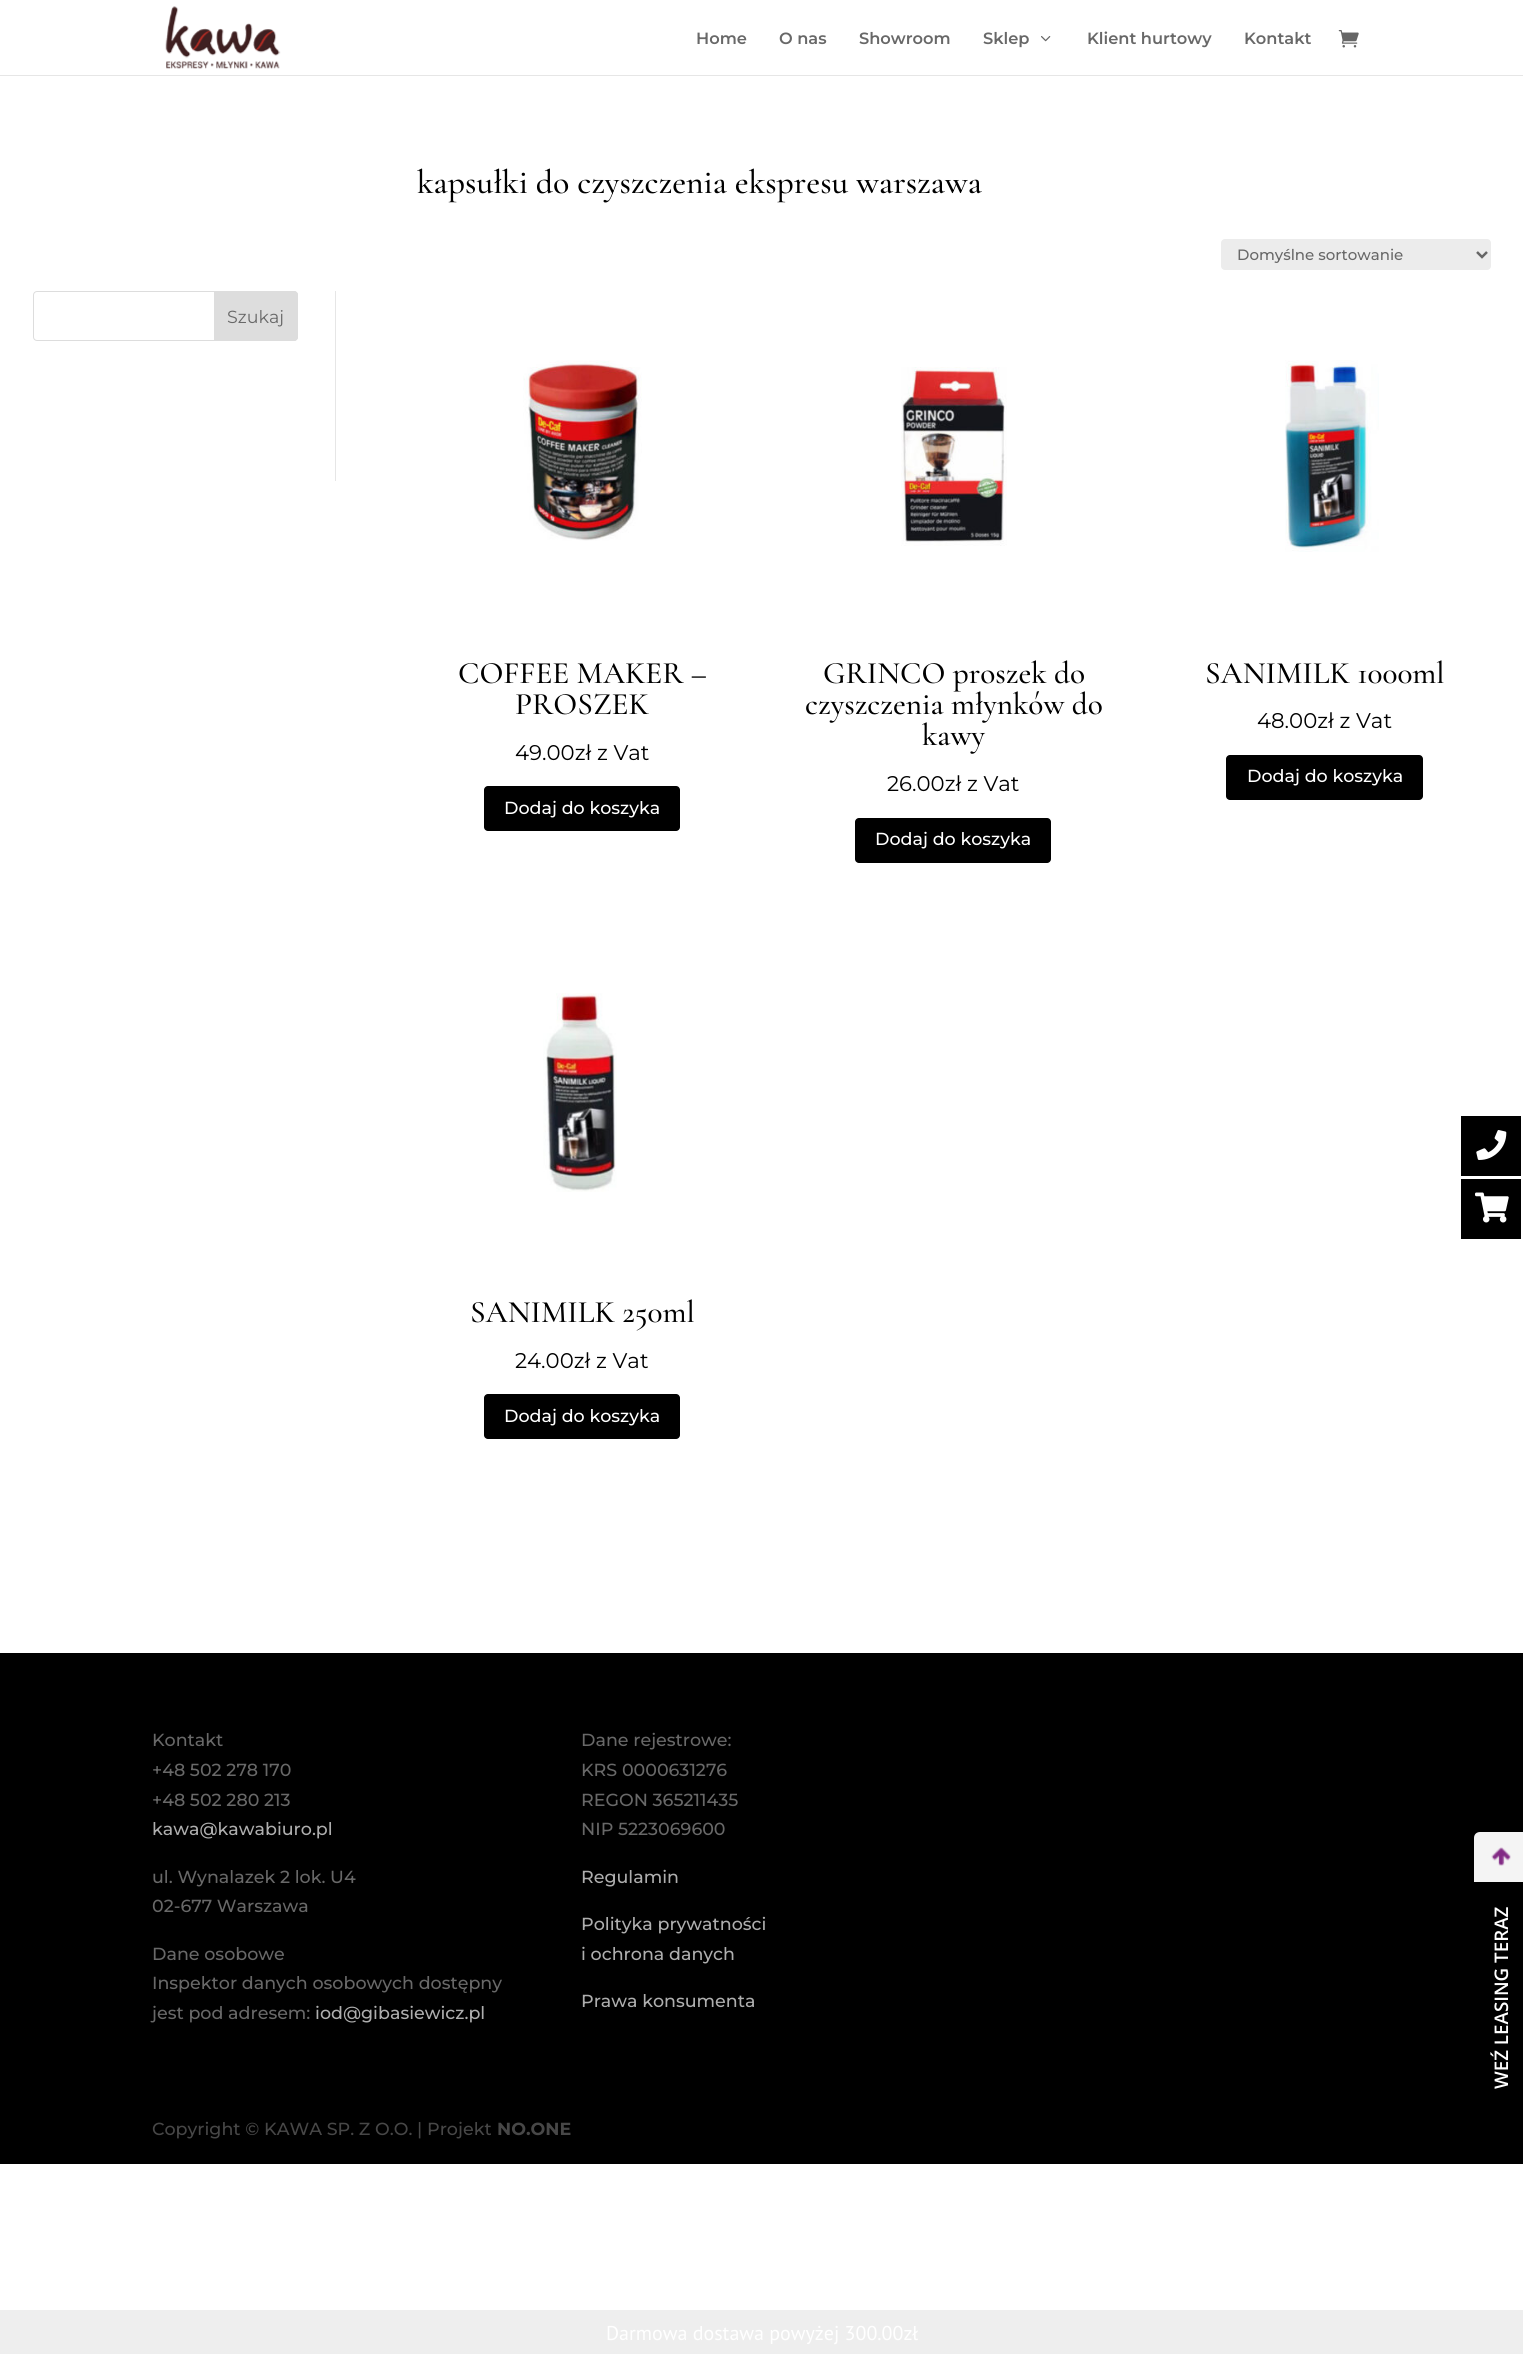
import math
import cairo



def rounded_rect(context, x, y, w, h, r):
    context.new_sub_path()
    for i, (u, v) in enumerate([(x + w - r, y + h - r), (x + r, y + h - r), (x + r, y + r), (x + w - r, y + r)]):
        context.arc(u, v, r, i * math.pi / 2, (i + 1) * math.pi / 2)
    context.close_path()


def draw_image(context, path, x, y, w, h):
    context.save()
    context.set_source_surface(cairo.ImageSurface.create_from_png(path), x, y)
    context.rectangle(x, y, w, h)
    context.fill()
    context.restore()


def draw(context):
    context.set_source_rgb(1, 1, 1)
    context.paint()
    context.set_source_rgb(230 / 255, 230 / 255, 230 / 255)
    context.new_path()
    context.move_to(0, 75)
    context.line_to(0, 76)
    context.line_to(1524, 76)
    context.line_to(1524, 1)
    context.line_to(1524, 75)
    context.close_path()
    context.fill()
    draw_image(context, "images/1.png", 165, 6, 116, 63)
    draw_image(context, "images/2.png", 1041, 36, 10, 6)
    draw_image(context, "images/3.png", 1338, 30, 21, 18)
    context.rectangle(335, 291, 1, 190)
    context.fill()
    rounded_rect(context, 33.5, 291.5, 264, 49, 3.5)
    context.set_source_rgb(221 / 255, 221 / 255, 221 / 255)
    context.set_line_width(1)
    context.stroke()
    context.new_path()
    context.move_to(214.5, 291.5)
    context.line_to(294, 291.5)
    context.curve_to(296, 291.5, 297.5, 293, 297.5, 295)
    context.line_to(297.5, 337)
    context.curve_to(297.5, 339, 296, 340.5, 294, 340.5)
    context.line_to(214.5, 340.5)
    context.close_path()
    context.fill_preserve()
    context.stroke()
    context.set_source_rgb(236 / 255, 236 / 255, 236 / 255)
    rounded_rect(context, 1221, 239, 270, 31, 4)
    context.fill()
    context.new_path()
    context.move_to(1477, 252)
    context.line_to(1482, 257)
    context.line_to(1487, 252)
    context.set_source_rgb(102 / 255, 102 / 255, 102 / 255)
    context.set_line_width(2.5)
    context.stroke()
    draw_image(context, "images/4.png", 523, 360, 119, 181)
    context.set_source_rgb(0, 0, 0)
    rounded_rect(context, 484, 786, 196, 45, 4)
    context.fill()
    draw_image(context, "images/5.png", 901, 367, 106, 179)
    rounded_rect(context, 855, 818, 196, 45, 4)
    context.fill()
    draw_image(context, "images/6.png", 1285, 360, 94, 192)
    rounded_rect(context, 1226, 755, 197, 45, 4)
    context.fill()
    draw_image(context, "images/7.png", 543, 993, 74, 199)
    rounded_rect(context, 484, 1394, 196, 45, 4)
    context.fill()
    context.rectangle(0, 1653, 1523, 511)
    context.fill()
    context.rectangle(1461, 1116, 60, 60)
    context.fill()
    draw_image(context, "images/8.png", 1476, 1130, 31, 30)
    context.rectangle(1461, 1179, 60, 60)
    context.fill()
    draw_image(context, "images/9.png", 1475, 1192, 34, 31)
    context.set_source_rgb(244 / 255, 244 / 255, 244 / 255)
    context.new_path()
    context.move_to(1474, 1882)
    context.line_to(1474, 1838)
    context.curve_to(1474, 1834, 1477, 1832, 1480, 1832)
    context.line_to(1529, 1832)
    context.line_to(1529, 1882)
    context.close_path()
    context.fill()
    draw_image(context, "images/10.png", 1491, 1847, 20, 19)
    context.set_source_rgb(238 / 255, 238 / 255, 238 / 255)
    context.rectangle(0, 2310, 1523, 44)
    context.fill()
    context.select_font_face("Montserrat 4 Thin")
    context.set_font_size(16.25)
    context.set_source_rgb(104 / 255, 104 / 255, 104 / 255)
    context.move_to(696, 44)
    context.show_text("Home")
    context.move_to(779, 44)
    context.show_text("O nas")
    context.move_to(859, 44)
    context.show_text("Showroom")
    context.move_to(983, 44)
    context.show_text("Sklep")
    context.move_to(1087, 44)
    context.show_text("Klient hurtowy")
    context.move_to(1244, 44)
    context.show_text("Kontakt")
    context.select_font_face("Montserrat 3 Thin")
    context.set_font_size(17.5)
    context.move_to(227, 323)
    context.show_text("Szukaj")
    context.select_font_face("Cormorant Garamond Light")
    context.set_font_size(33.75)
    context.set_source_rgb(0, 0, 0)
    context.move_to(417, 193)
    context.show_text("kapsułki do czyszczenia ekspresu warszawa")
    context.select_font_face("Montserrat Thin")
    context.set_font_size(15)
    context.set_source_rgb(104 / 255, 104 / 255, 104 / 255)
    context.move_to(1237, 260)
    context.show_text("Domyślne sortowanie")
    context.select_font_face("Cormorant Garamond Light")
    context.set_font_size(31.25)
    context.set_source_rgb(0, 0, 0)
    context.move_to(458, 683)
    context.show_text("COFFEE MAKER –")
    context.move_to(515, 714)
    context.show_text("PROSZEK")
    context.select_font_face("Montserrat 3 Thin")
    context.set_font_size(21.25)
    context.move_to(515, 760)
    context.show_text("49.00zł z Vat")
    context.select_font_face("Montserrat Thin")
    context.set_font_size(17.5)
    context.set_source_rgb(1, 1, 1)
    context.move_to(504, 814)
    context.show_text("Dodaj do koszyka")
    context.select_font_face("Cormorant Garamond Light")
    context.set_font_size(31.25)
    context.set_source_rgb(0, 0, 0)
    context.move_to(823, 683)
    context.show_text("GRINCO proszek do")
    context.move_to(805, 714)
    context.show_text("czyszczenia młynków do")
    context.move_to(922, 745)
    context.show_text("kawy")
    context.select_font_face("Montserrat 3 Thin")
    context.set_font_size(21.25)
    context.move_to(887, 791)
    context.show_text("26.00zł z Vat")
    context.select_font_face("Montserrat Thin")
    context.set_font_size(17.5)
    context.set_source_rgb(1, 1, 1)
    context.move_to(875, 845)
    context.show_text("Dodaj do koszyka")
    context.select_font_face("Cormorant Garamond Light")
    context.set_font_size(31.25)
    context.set_source_rgb(0, 0, 0)
    context.move_to(1205, 683)
    context.show_text("SANIMILK 1000ml")
    context.select_font_face("Montserrat 3 Thin")
    context.set_font_size(21.25)
    context.move_to(1257, 728)
    context.show_text("48.00zł z Vat")
    context.select_font_face("Montserrat Thin")
    context.set_font_size(17.5)
    context.set_source_rgb(1, 1, 1)
    context.move_to(1247, 782)
    context.show_text("Dodaj do koszyka")
    context.select_font_face("Cormorant Garamond Light")
    context.set_font_size(31.25)
    context.set_source_rgb(0, 0, 0)
    context.move_to(470, 1322)
    context.show_text("SANIMILK 250ml")
    context.select_font_face("Montserrat 3 Thin")
    context.set_font_size(21.25)
    context.move_to(515, 1368)
    context.show_text("24.00zł z Vat")
    context.select_font_face("Montserrat Thin")
    context.set_font_size(17.5)
    context.set_source_rgb(1, 1, 1)
    context.move_to(504, 1422)
    context.show_text("Dodaj do koszyka")
    context.set_source_rgb(104 / 255, 104 / 255, 104 / 255)
    context.move_to(152, 1746)
    context.show_text("Kontakt")
    context.move_to(152, 1776)
    context.show_text("+48 502 278 170")
    context.move_to(152, 1806)
    context.show_text("+48 502 280 213")
    context.set_source_rgb(174 / 255, 174 / 255, 174 / 255)
    context.move_to(152, 1835)
    context.show_text("kawa@kawabiuro.pl")
    context.set_source_rgb(104 / 255, 104 / 255, 104 / 255)
    context.move_to(152, 1883)
    context.show_text("ul. Wynalazek 2 lok. U4")
    context.move_to(152, 1912)
    context.show_text("02-677 Warszawa")
    context.move_to(152, 1960)
    context.show_text("Dane osobowe")
    context.move_to(152, 1989)
    context.show_text("Inspektor danych osobowych dostępny")
    context.move_to(152, 2019)
    context.show_text("jest pod adresem:")
    context.set_source_rgb(174 / 255, 174 / 255, 174 / 255)
    context.move_to(315, 2019)
    context.show_text("iod@gibasiewicz.pl")
    context.set_source_rgb(104 / 255, 104 / 255, 104 / 255)
    context.move_to(581, 1746)
    context.show_text("Dane rejestrowe:")
    context.move_to(581, 1776)
    context.show_text("KRS 0000631276")
    context.move_to(581, 1806)
    context.show_text("REGON 365211435")
    context.move_to(581, 1835)
    context.show_text("NIP 5223069600")
    context.set_source_rgb(174 / 255, 174 / 255, 174 / 255)
    context.move_to(581, 1883)
    context.show_text("Regulamin")
    context.move_to(581, 1930)
    context.show_text("Polityka prywatności")
    context.move_to(581, 1960)
    context.show_text("i ochrona danych")
    context.move_to(581, 2007)
    context.show_text("Prawa konsumenta")
    context.set_source_rgb(71 / 255, 71 / 255, 71 / 255)
    context.move_to(152, 2135)
    context.show_text("Copyright © KAWA SP. Z O.O. | Projekt")
    context.select_font_face("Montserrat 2 Thin")
    context.move_to(497, 2135)
    context.show_text("NO.ONE")
    context.select_font_face("Open Sans SemiBold")
    context.set_font_size(18.75)
    context.set_source_rgb(1, 1, 1)
    context.save()
    context.translate(1508, 2089)
    context.rotate(-90 * math.pi / 180)
    context.move_to(0, 0)
    context.show_text("WEŹ LEASING TERAZ")
    context.restore()
    context.select_font_face("PT Sans")
    context.set_font_size(20)
    context.move_to(606, 2340)
    context.show_text("Darmowa dostawa powyżej 300.00zł")


surface = cairo.ImageSurface(cairo.Format.RGB24, 1523, 2354)
context = cairo.Context(surface)
options = cairo.FontOptions()
options.set_hint_metrics(cairo.HintMetrics.OFF)
options.set_hint_style(cairo.HintStyle.NONE)
context.set_font_options(options)
context.set_miter_limit(4)
draw(context)
surface.write_to_png("out.png")
